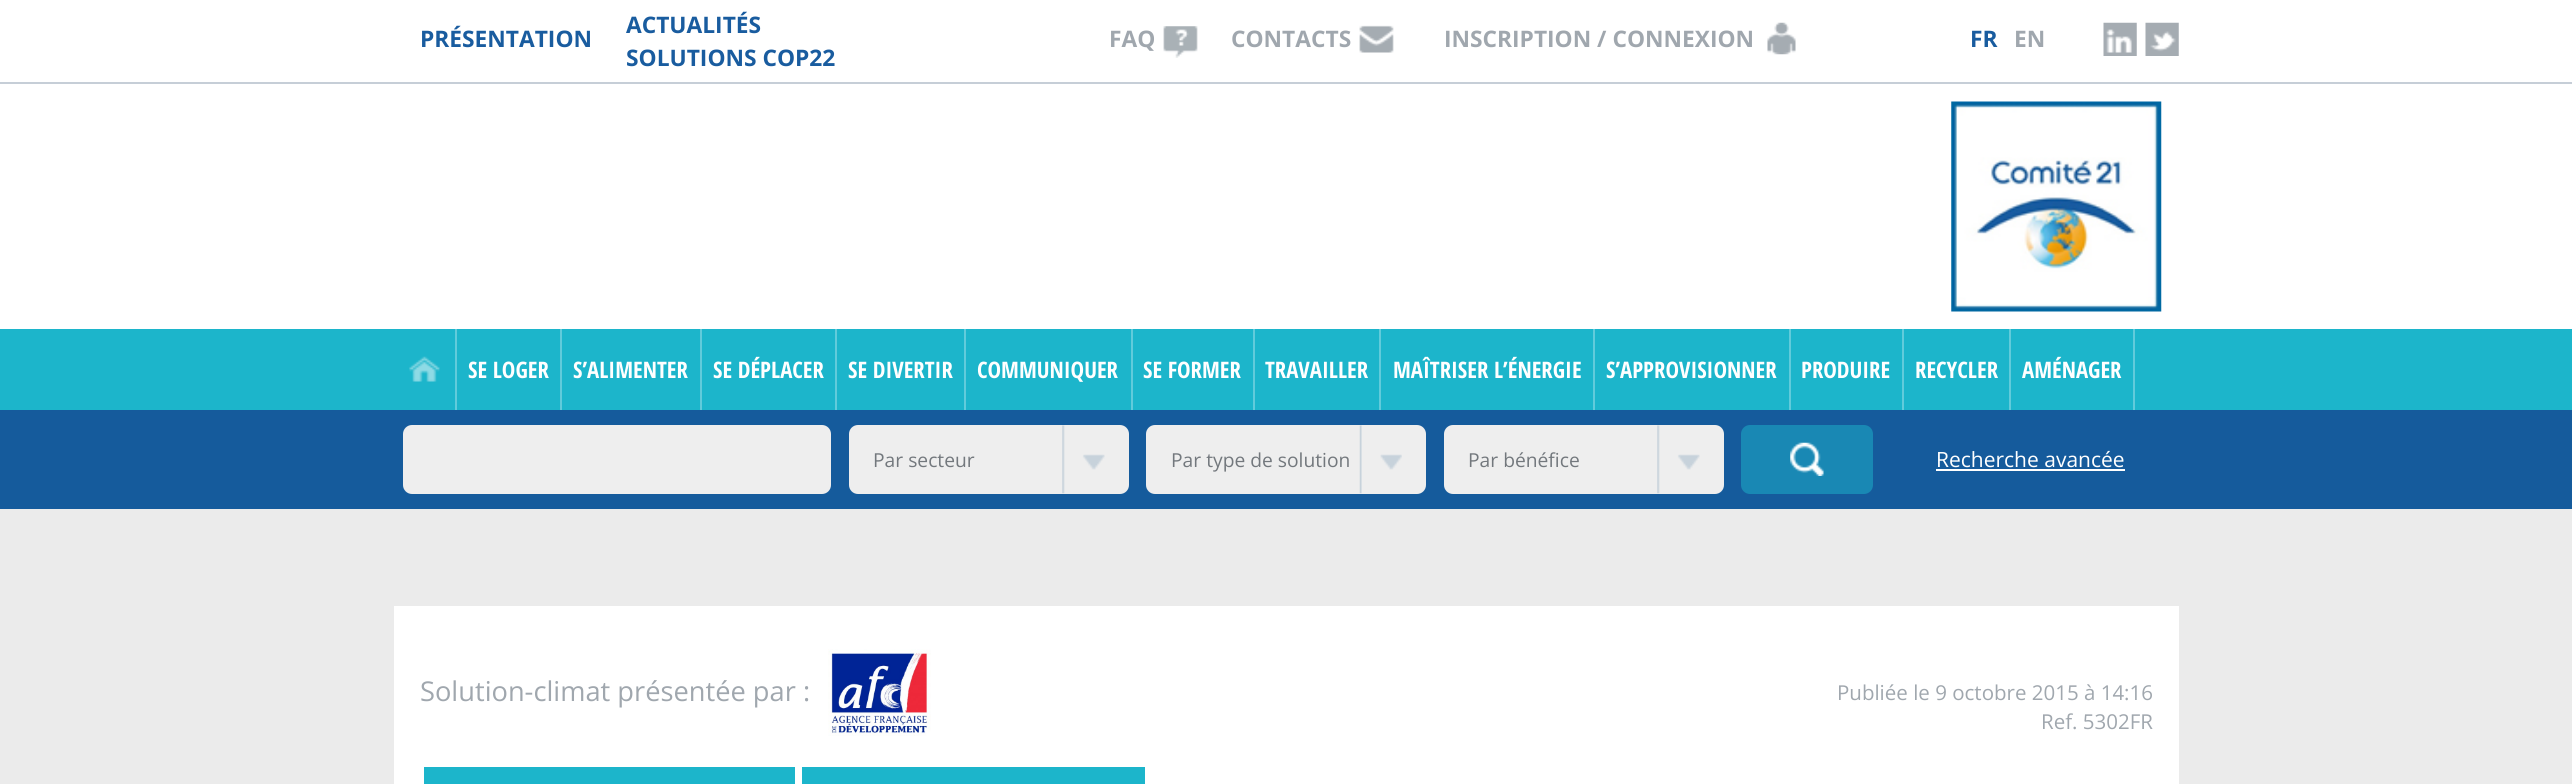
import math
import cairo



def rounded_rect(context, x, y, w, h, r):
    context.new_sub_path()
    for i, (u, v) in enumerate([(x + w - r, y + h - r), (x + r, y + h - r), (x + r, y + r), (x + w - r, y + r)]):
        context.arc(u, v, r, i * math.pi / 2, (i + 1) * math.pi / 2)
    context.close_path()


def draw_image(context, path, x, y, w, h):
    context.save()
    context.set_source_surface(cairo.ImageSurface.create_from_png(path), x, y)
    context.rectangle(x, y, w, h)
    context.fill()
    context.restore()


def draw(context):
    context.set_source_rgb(235 / 255, 235 / 255, 235 / 255)
    context.paint()
    context.set_source_rgb(1, 1, 1)
    context.rectangle(0, 0, 2572, 329)
    context.fill()
    context.set_source_rgb(198 / 255, 206 / 255, 215 / 255)
    context.rectangle(0, 82, 2572, 2)
    context.fill()
    draw_image(context, "images/1.png", 1163, 26, 35, 32)
    draw_image(context, "images/2.png", 1359, 25, 35, 28)
    draw_image(context, "images/3.png", 1767, 22, 29, 33)
    draw_image(context, "images/4.png", 2103, 22, 34, 34)
    draw_image(context, "images/5.png", 2145, 22, 34, 34)
    draw_image(context, "images/6.png", 1951, 101, 211, 211)
    context.set_source_rgb(28 / 255, 181 / 255, 203 / 255)
    context.rectangle(0, 329, 2572, 81)
    context.fill()
    context.set_source_rgb(97 / 255, 203 / 255, 219 / 255)
    context.rectangle(455, 329, 2, 81)
    context.fill()
    draw_image(context, "images/7.png", 409, 356, 31, 26)
    context.rectangle(560, 329, 2, 81)
    context.fill()
    context.rectangle(700, 329, 2, 81)
    context.fill()
    context.rectangle(835, 329, 2, 81)
    context.fill()
    context.rectangle(964, 329, 2, 81)
    context.fill()
    context.rectangle(1131, 329, 2, 81)
    context.fill()
    context.rectangle(1253, 329, 2, 81)
    context.fill()
    context.rectangle(1379, 329, 2, 81)
    context.fill()
    context.rectangle(1593, 329, 2, 81)
    context.fill()
    context.rectangle(1789, 329, 2, 81)
    context.fill()
    context.rectangle(1902, 329, 2, 81)
    context.fill()
    context.rectangle(2009, 329, 2, 81)
    context.fill()
    context.rectangle(2133, 329, 2, 81)
    context.fill()
    context.set_source_rgb(21 / 255, 91 / 255, 156 / 255)
    context.rectangle(0, 410, 2572, 99)
    context.fill()
    context.set_source_rgb(238 / 255, 238 / 255, 238 / 255)
    rounded_rect(context, 403, 425, 428, 69, 9)
    context.fill()
    rounded_rect(context, 849, 425, 280, 69, 9)
    context.fill()
    draw_image(context, "images/8.png", 1062, 425, 43, 69)
    rounded_rect(context, 1146, 425, 280, 69, 9)
    context.fill()
    draw_image(context, "images/9.png", 1359, 425, 43, 69)
    rounded_rect(context, 1444, 425, 280, 69, 9)
    context.fill()
    draw_image(context, "images/8.png", 1657, 425, 43, 69)
    context.set_source_rgb(25 / 255, 136 / 255, 180 / 255)
    rounded_rect(context, 1741, 425, 132, 69, 9)
    context.fill()
    draw_image(context, "images/10.png", 1790, 442, 34, 34)
    context.set_source_rgb(1, 1, 1)
    context.rectangle(1936, 469, 189, 2)
    context.fill()
    context.rectangle(394, 606, 1785, 178)
    context.fill()
    draw_image(context, "images/11.png", 828, 649, 103, 87)
    context.set_source_rgb(28 / 255, 181 / 255, 203 / 255)
    context.rectangle(424, 767, 371, 17)
    context.fill()
    context.rectangle(802, 767, 343, 17)
    context.fill()
    context.select_font_face("Open Sans", cairo.FontSlant.NORMAL, cairo.FontWeight.BOLD)
    context.set_font_size(22.75)
    context.set_source_rgb(25 / 255, 92 / 255, 159 / 255)
    context.move_to(420, 47)
    context.show_text("PRÉSENTATION")
    context.move_to(626, 33)
    context.show_text("ACTUALITÉS")
    context.move_to(626, 66)
    context.show_text("SOLUTIONS COP22")
    context.set_source_rgb(160 / 255, 167 / 255, 174 / 255)
    context.move_to(1109, 47)
    context.show_text("FAQ")
    context.move_to(1231, 47)
    context.show_text("CONTACTS")
    context.move_to(1444, 47)
    context.show_text("INSCRIPTION / CONNEXION")
    context.set_source_rgb(25 / 255, 92 / 255, 159 / 255)
    context.move_to(1970, 47)
    context.show_text("FR")
    context.set_source_rgb(160 / 255, 167 / 255, 174 / 255)
    context.move_to(2014, 47)
    context.show_text("EN")
    context.select_font_face("Open Sans Condensed", cairo.FontSlant.NORMAL, cairo.FontWeight.BOLD)
    context.set_source_rgb(1, 1, 1)
    context.move_to(468, 378)
    context.show_text("SE LOGER")
    context.move_to(573, 378)
    context.show_text("S’ALIMENTER")
    context.move_to(713, 378)
    context.show_text("SE DÉPLACER")
    context.move_to(848, 378)
    context.show_text("SE DIVERTIR")
    context.move_to(977, 378)
    context.show_text("COMMUNIQUER")
    context.move_to(1143, 378)
    context.show_text("SE FORMER")
    context.move_to(1265, 378)
    context.show_text("TRAVAILLER")
    context.move_to(1393, 378)
    context.show_text("MAÎTRISER L’ÉNERGIE")
    context.move_to(1606, 378)
    context.show_text("S’APPROVISIONNER")
    context.move_to(1801, 378)
    context.show_text("PRODUIRE")
    context.move_to(1915, 378)
    context.show_text("RECYCLER")
    context.move_to(2022, 378)
    context.show_text("AMÉNAGER")
    context.select_font_face("Open Sans")
    context.set_font_size(19.25)
    context.set_source_rgb(115 / 255, 120 / 255, 125 / 255)
    context.move_to(873, 467)
    context.show_text("Par secteur")
    context.move_to(1171, 467)
    context.show_text("Par type de solution")
    context.move_to(1468, 467)
    context.show_text("Par bénéfice")
    context.set_font_size(21)
    context.set_source_rgb(1, 1, 1)
    context.move_to(1936, 467)
    context.show_text("Recherche avancée")
    context.set_font_size(27.25)
    context.set_source_rgb(160 / 255, 167 / 255, 174 / 255)
    context.move_to(420, 701)
    context.show_text("Solution-climat présentée par :")
    context.set_font_size(20.5)
    context.move_to(1837, 700)
    context.show_text("Publiée le 9 octobre 2015 à 14:16")
    context.move_to(2041, 729)
    context.show_text("Ref. 5302FR")


surface = cairo.ImageSurface(cairo.Format.RGB24, 2572, 784)
context = cairo.Context(surface)
options = cairo.FontOptions()
options.set_hint_metrics(cairo.HintMetrics.OFF)
options.set_hint_style(cairo.HintStyle.NONE)
context.set_font_options(options)
context.set_miter_limit(4)
draw(context)
surface.write_to_png("out.png")
